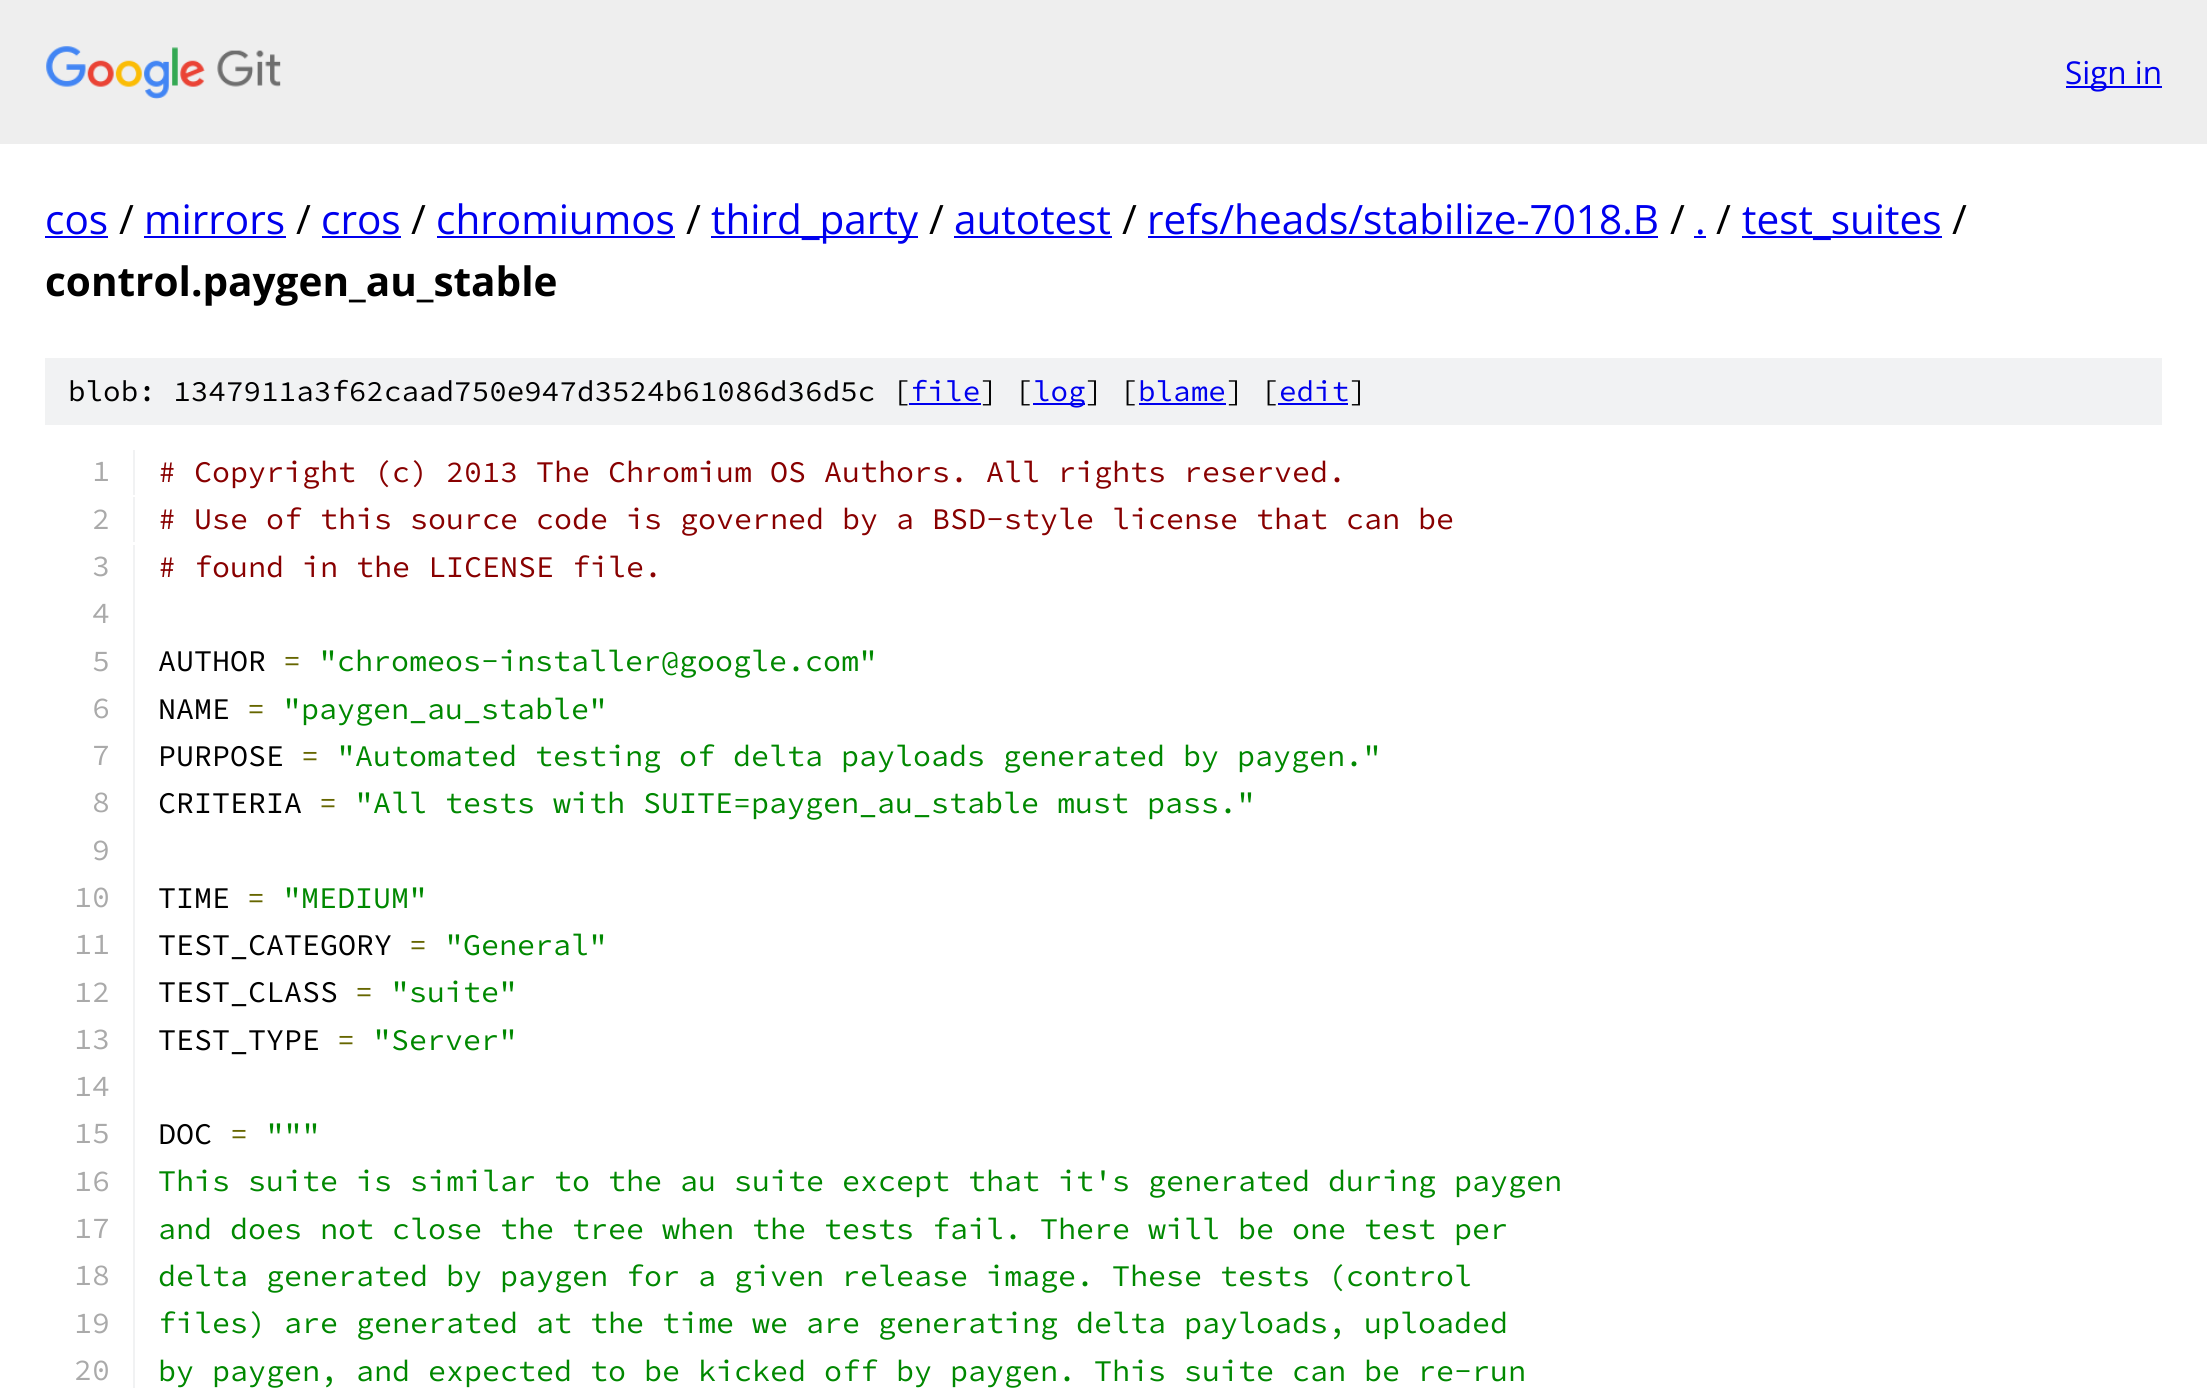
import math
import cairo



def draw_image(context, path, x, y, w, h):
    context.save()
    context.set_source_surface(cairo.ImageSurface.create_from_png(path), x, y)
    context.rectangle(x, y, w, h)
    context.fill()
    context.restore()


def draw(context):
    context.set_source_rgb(1, 1, 1)
    context.paint()
    context.set_source_rgb(238 / 255, 238 / 255, 238 / 255)
    context.rectangle(0, 0, 2207, 144)
    context.fill()
    draw_image(context, "images/1.png", 46, 46, 235, 53)
    context.set_source_rgb(0, 0, 238 / 255)
    context.rectangle(2066, 86, 96, 2)
    context.fill()
    context.rectangle(45, 236, 63, 2)
    context.fill()
    context.rectangle(144, 236, 142, 2)
    context.fill()
    context.rectangle(322, 236, 79, 2)
    context.fill()
    context.rectangle(437, 236, 238, 2)
    context.fill()
    context.rectangle(711, 236, 207, 2)
    context.fill()
    context.rectangle(954, 236, 158, 2)
    context.fill()
    context.rectangle(1148, 236, 510, 2)
    context.fill()
    context.rectangle(1694, 236, 12, 2)
    context.fill()
    context.rectangle(1742, 236, 200, 2)
    context.fill()
    context.set_source_rgb(241 / 255, 242 / 255, 243 / 255)
    context.rectangle(45, 358, 2117, 67)
    context.fill()
    context.set_source_rgb(0, 0, 238 / 255)
    context.rectangle(909, 403, 72, 2)
    context.fill()
    context.rectangle(1033, 403, 52, 2)
    context.fill()
    context.rectangle(1139, 403, 87, 2)
    context.fill()
    context.rectangle(1278, 403, 70, 2)
    context.fill()
    context.set_source_rgb(241 / 255, 242 / 255, 243 / 255)
    context.rectangle(133, 450, 2, 45)
    context.fill()
    context.rectangle(133, 497, 2, 45)
    context.fill()
    context.rectangle(133, 545, 2, 843)
    context.fill()
    context.select_font_face("Open Sans")
    context.set_font_size(31.5)
    context.set_source_rgb(0, 0, 238 / 255)
    context.move_to(2065, 84)
    context.show_text("Sign in")
    context.set_font_size(40.5)
    context.move_to(45, 234)
    context.show_text("cos")
    context.set_source_rgb(0, 0, 0)
    context.move_to(119, 234)
    context.show_text("/")
    context.set_source_rgb(0, 0, 238 / 255)
    context.move_to(144, 234)
    context.show_text("mirrors")
    context.set_source_rgb(0, 0, 0)
    context.move_to(296, 234)
    context.show_text("/")
    context.set_source_rgb(0, 0, 238 / 255)
    context.move_to(321, 234)
    context.show_text("cros")
    context.set_source_rgb(0, 0, 0)
    context.move_to(411, 234)
    context.show_text("/")
    context.set_source_rgb(0, 0, 238 / 255)
    context.move_to(436, 234)
    context.show_text("chromiumos")
    context.set_source_rgb(0, 0, 0)
    context.move_to(686, 234)
    context.show_text("/")
    context.set_source_rgb(0, 0, 238 / 255)
    context.move_to(711, 234)
    context.show_text("third_party")
    context.set_source_rgb(0, 0, 0)
    context.move_to(929, 234)
    context.show_text("/")
    context.set_source_rgb(0, 0, 238 / 255)
    context.move_to(954, 234)
    context.show_text("autotest")
    context.set_source_rgb(0, 0, 0)
    context.move_to(1122, 234)
    context.show_text("/")
    context.set_source_rgb(0, 0, 238 / 255)
    context.move_to(1147, 234)
    context.show_text("refs/heads/stabilize-7018.B")
    context.set_source_rgb(0, 0, 0)
    context.move_to(1670, 234)
    context.show_text("/")
    context.set_source_rgb(0, 0, 238 / 255)
    context.move_to(1695, 234)
    context.show_text(".")
    context.set_source_rgb(0, 0, 0)
    context.move_to(1716, 234)
    context.show_text("/")
    context.set_source_rgb(0, 0, 238 / 255)
    context.move_to(1742, 234)
    context.show_text("test_suites")
    context.set_source_rgb(0, 0, 0)
    context.move_to(1952, 234)
    context.show_text("/")
    context.select_font_face("Open Sans", cairo.FontSlant.NORMAL, cairo.FontWeight.BOLD)
    context.move_to(45, 296)
    context.show_text("control.paygen_au_stable")
    context.select_font_face("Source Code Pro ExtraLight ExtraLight")
    context.set_font_size(29.25)
    context.move_to(68, 401)
    context.show_text("blob: 1347911a3f62caad750e947d3524b61086d36d5c [")
    context.set_source_rgb(0, 0, 238 / 255)
    context.move_to(910, 401)
    context.show_text("file")
    context.set_source_rgb(0, 0, 0)
    context.move_to(980, 401)
    context.show_text("] [")
    context.set_source_rgb(0, 0, 238 / 255)
    context.move_to(1033, 401)
    context.show_text("log")
    context.set_source_rgb(0, 0, 0)
    context.move_to(1085, 401)
    context.show_text("] [")
    context.set_source_rgb(0, 0, 238 / 255)
    context.move_to(1138, 401)
    context.show_text("blame")
    context.set_source_rgb(0, 0, 0)
    context.move_to(1226, 401)
    context.show_text("] [")
    context.set_source_rgb(0, 0, 238 / 255)
    context.move_to(1279, 401)
    context.show_text("edit")
    context.set_source_rgb(0, 0, 0)
    context.move_to(1349, 401)
    context.show_text("]")
    context.set_font_size(30)
    context.set_source_rgb(170 / 255, 170 / 255, 170 / 255)
    context.move_to(92, 481)
    context.show_text("1")
    context.set_source_rgb(136 / 255, 0, 0)
    context.move_to(158, 482)
    context.show_text("# Copyright (c) 2013 The Chromium OS Authors. All rights reserved.")
    context.set_source_rgb(170 / 255, 170 / 255, 170 / 255)
    context.move_to(92, 529)
    context.show_text("2")
    context.set_source_rgb(136 / 255, 0, 0)
    context.move_to(158, 529)
    context.show_text("# Use of this source code is governed by a BSD-style license that can be")
    context.set_source_rgb(170 / 255, 170 / 255, 170 / 255)
    context.move_to(92, 576)
    context.show_text("3")
    context.set_source_rgb(136 / 255, 0, 0)
    context.move_to(158, 577)
    context.show_text("# found in the LICENSE file.")
    context.set_source_rgb(170 / 255, 170 / 255, 170 / 255)
    context.move_to(92, 623)
    context.show_text("4")
    context.move_to(92, 671)
    context.show_text("5")
    context.set_source_rgb(0, 0, 0)
    context.move_to(158, 671)
    context.show_text("AUTHOR")
    context.set_source_rgb(102 / 255, 102 / 255, 0)
    context.move_to(283, 671)
    context.show_text("=")
    context.set_source_rgb(0, 136 / 255, 0)
    context.move_to(319, 671)
    context.show_text("\"chromeos-installer@google.com\"")
    context.set_source_rgb(170 / 255, 170 / 255, 170 / 255)
    context.move_to(92, 718)
    context.show_text("6")
    context.set_source_rgb(0, 0, 0)
    context.move_to(158, 719)
    context.show_text("NAME")
    context.set_source_rgb(102 / 255, 102 / 255, 0)
    context.move_to(247, 719)
    context.show_text("=")
    context.set_source_rgb(0, 136 / 255, 0)
    context.move_to(283, 719)
    context.show_text("\"paygen_au_stable\"")
    context.set_source_rgb(170 / 255, 170 / 255, 170 / 255)
    context.move_to(92, 765)
    context.show_text("7")
    context.set_source_rgb(0, 0, 0)
    context.move_to(158, 766)
    context.show_text("PURPOSE")
    context.set_source_rgb(102 / 255, 102 / 255, 0)
    context.move_to(301, 766)
    context.show_text("=")
    context.set_source_rgb(0, 136 / 255, 0)
    context.move_to(337, 766)
    context.show_text("\"Automated testing of delta payloads generated by paygen.\"")
    context.set_source_rgb(170 / 255, 170 / 255, 170 / 255)
    context.move_to(92, 812)
    context.show_text("8")
    context.set_source_rgb(0, 0, 0)
    context.move_to(158, 813)
    context.show_text("CRITERIA")
    context.set_source_rgb(102 / 255, 102 / 255, 0)
    context.move_to(319, 813)
    context.show_text("=")
    context.set_source_rgb(0, 136 / 255, 0)
    context.move_to(355, 813)
    context.show_text("\"All tests with SUITE=paygen_au_stable must pass.\"")
    context.set_source_rgb(170 / 255, 170 / 255, 170 / 255)
    context.move_to(92, 860)
    context.show_text("9")
    context.move_to(74, 907)
    context.show_text("10")
    context.set_source_rgb(0, 0, 0)
    context.move_to(158, 908)
    context.show_text("TIME")
    context.set_source_rgb(102 / 255, 102 / 255, 0)
    context.move_to(247, 908)
    context.show_text("=")
    context.set_source_rgb(0, 136 / 255, 0)
    context.move_to(283, 908)
    context.show_text("\"MEDIUM\"")
    context.set_source_rgb(170 / 255, 170 / 255, 170 / 255)
    context.move_to(74, 954)
    context.show_text("11")
    context.set_source_rgb(0, 0, 0)
    context.move_to(158, 955)
    context.show_text("TEST_CATEGORY")
    context.set_source_rgb(102 / 255, 102 / 255, 0)
    context.move_to(409, 955)
    context.show_text("=")
    context.set_source_rgb(0, 136 / 255, 0)
    context.move_to(445, 955)
    context.show_text("\"General\"")
    context.set_source_rgb(170 / 255, 170 / 255, 170 / 255)
    context.move_to(74, 1002)
    context.show_text("12")
    context.set_source_rgb(0, 0, 0)
    context.move_to(158, 1002)
    context.show_text("TEST_CLASS")
    context.set_source_rgb(102 / 255, 102 / 255, 0)
    context.move_to(355, 1002)
    context.show_text("=")
    context.set_source_rgb(0, 136 / 255, 0)
    context.move_to(391, 1002)
    context.show_text("\"suite\"")
    context.set_source_rgb(170 / 255, 170 / 255, 170 / 255)
    context.move_to(74, 1049)
    context.show_text("13")
    context.set_source_rgb(0, 0, 0)
    context.move_to(158, 1050)
    context.show_text("TEST_TYPE")
    context.set_source_rgb(102 / 255, 102 / 255, 0)
    context.move_to(337, 1050)
    context.show_text("=")
    context.set_source_rgb(0, 136 / 255, 0)
    context.move_to(373, 1050)
    context.show_text("\"Server\"")
    context.set_source_rgb(170 / 255, 170 / 255, 170 / 255)
    context.move_to(74, 1096)
    context.show_text("14")
    context.move_to(74, 1143)
    context.show_text("15")
    context.set_source_rgb(0, 0, 0)
    context.move_to(158, 1144)
    context.show_text("DOC")
    context.set_source_rgb(102 / 255, 102 / 255, 0)
    context.move_to(230, 1144)
    context.show_text("=")
    context.set_source_rgb(0, 136 / 255, 0)
    context.move_to(266, 1144)
    context.show_text("\"\"\"")
    context.set_source_rgb(170 / 255, 170 / 255, 170 / 255)
    context.move_to(74, 1191)
    context.show_text("16")
    context.set_source_rgb(0, 136 / 255, 0)
    context.move_to(158, 1191)
    context.show_text("This suite is similar to the au suite except that it's generated during paygen")
    context.set_source_rgb(170 / 255, 170 / 255, 170 / 255)
    context.move_to(74, 1238)
    context.show_text("17")
    context.set_source_rgb(0, 136 / 255, 0)
    context.move_to(158, 1239)
    context.show_text("and does not close the tree when the tests fail. There will be one test per")
    context.set_source_rgb(170 / 255, 170 / 255, 170 / 255)
    context.move_to(74, 1285)
    context.show_text("18")
    context.set_source_rgb(0, 136 / 255, 0)
    context.move_to(158, 1286)
    context.show_text("delta generated by paygen for a given release image. These tests (control")
    context.set_source_rgb(170 / 255, 170 / 255, 170 / 255)
    context.move_to(74, 1333)
    context.show_text("19")
    context.set_source_rgb(0, 136 / 255, 0)
    context.move_to(158, 1333)
    context.show_text("files) are generated at the time we are generating delta payloads, uploaded")
    context.set_source_rgb(170 / 255, 170 / 255, 170 / 255)
    context.move_to(74, 1380)
    context.show_text("20")
    context.set_source_rgb(0, 136 / 255, 0)
    context.move_to(158, 1381)
    context.show_text("by paygen, and expected to be kicked off by paygen. This suite can be re-run")


surface = cairo.ImageSurface(cairo.Format.RGB24, 2207, 1388)
context = cairo.Context(surface)
options = cairo.FontOptions()
options.set_hint_metrics(cairo.HintMetrics.OFF)
options.set_hint_style(cairo.HintStyle.NONE)
context.set_font_options(options)
context.set_miter_limit(4)
draw(context)
surface.write_to_png("out.png")
